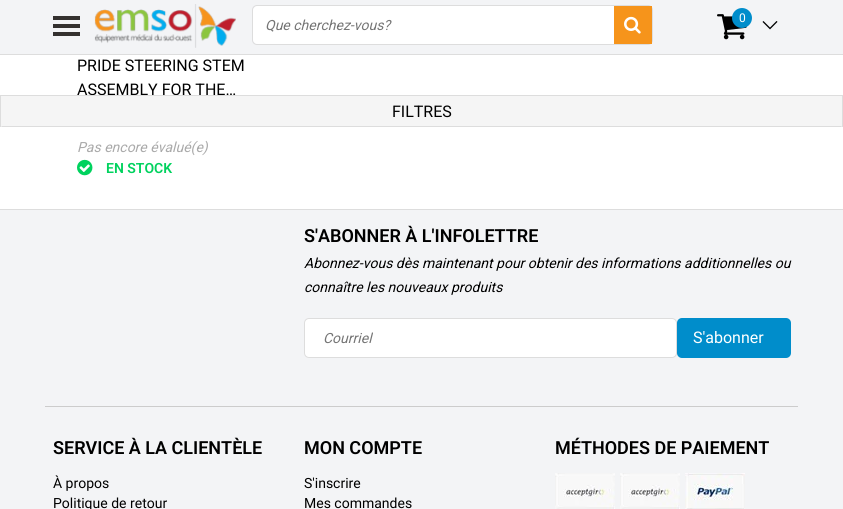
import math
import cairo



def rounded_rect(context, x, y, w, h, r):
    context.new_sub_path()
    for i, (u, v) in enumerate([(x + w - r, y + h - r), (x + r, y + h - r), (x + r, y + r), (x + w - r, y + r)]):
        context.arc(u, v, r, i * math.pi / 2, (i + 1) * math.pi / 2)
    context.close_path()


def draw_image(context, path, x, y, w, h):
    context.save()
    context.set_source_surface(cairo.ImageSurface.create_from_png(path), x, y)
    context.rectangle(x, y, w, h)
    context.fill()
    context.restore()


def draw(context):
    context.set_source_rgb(1, 1, 1)
    context.paint()
    context.set_source_rgb(243 / 255, 244 / 255, 246 / 255)
    context.rectangle(0, 0, 843, 54)
    context.fill()
    context.set_source_rgb(221 / 255, 221 / 255, 221 / 255)
    context.rectangle(0, 54, 843, 1)
    context.fill()
    context.set_source_rgb(52 / 255, 49 / 255, 47 / 255)
    context.rectangle(53, 16, 27, 4)
    context.fill()
    context.rectangle(53, 24, 27, 4)
    context.fill()
    context.rectangle(53, 32, 27, 4)
    context.fill()
    draw_image(context, "images/1.png", 94, 4, 142, 44)
    draw_image(context, "images/2.png", 717, 14, 30, 26)
    context.set_source_rgb(0, 141 / 255, 203 / 255)
    context.arc(742, 18, 10, 0, 2 * math.pi)
    context.fill()
    draw_image(context, "images/3.png", 762, 21, 16, 9)
    rounded_rect(context, 252.5, 5.5, 400, 39, 4.5)
    context.set_source_rgb(221 / 255, 221 / 255, 221 / 255)
    context.set_line_width(1)
    context.stroke()
    context.set_source_rgb(1, 1, 1)
    rounded_rect(context, 253, 6, 399, 38, 5)
    context.fill()
    context.set_source_rgb(246 / 255, 148 / 255, 27 / 255)
    context.rectangle(614, 6, 38, 38)
    context.fill()
    draw_image(context, "images/4.png", 624, 16, 17, 18)
    draw_image(context, "images/5.png", 77, 159, 16, 17)
    context.set_source_rgb(245 / 255, 245 / 255, 245 / 255)
    context.rectangle(1, 96, 841, 31)
    context.fill()
    context.set_source_rgb(221 / 255, 221 / 255, 221 / 255)
    context.new_path()
    context.move_to(842, 127)
    context.line_to(1, 127)
    context.line_to(2, 126)
    context.line_to(841, 126)
    context.close_path()
    context.fill()
    context.set_source_rgb(243 / 255, 244 / 255, 246 / 255)
    context.rectangle(0, 210, 843, 299)
    context.fill()
    context.set_source_rgb(221 / 255, 221 / 255, 221 / 255)
    context.rectangle(0, 209, 843, 1)
    context.fill()
    context.set_source_rgb(1, 1, 1)
    rounded_rect(context, 304.5, 318.5, 372, 39, 4.5)
    context.fill_preserve()
    context.set_source_rgb(221 / 255, 221 / 255, 221 / 255)
    context.stroke()
    context.set_source_rgb(0, 141 / 255, 203 / 255)
    rounded_rect(context, 677, 318, 114, 40, 5)
    context.fill()
    context.set_source_rgb(204 / 255, 204 / 255, 204 / 255)
    context.rectangle(45, 406, 753, 1)
    context.fill()
    draw_image(context, "images/6.png", 555, 473, 60, 36)
    draw_image(context, "images/6.png", 620, 473, 60, 36)
    draw_image(context, "images/7.png", 685, 473, 60, 36)
    context.select_font_face("Roboto")
    context.set_font_size(12)
    context.set_source_rgb(1, 1, 1)
    context.move_to(739, 22)
    context.show_text("0")
    context.select_font_face("Roboto", cairo.FontSlant.ITALIC)
    context.set_font_size(14)
    context.set_source_rgb(117 / 255, 117 / 255, 117 / 255)
    context.move_to(265, 30)
    context.show_text("Que cherchez-vous?")
    context.select_font_face("Roboto")
    context.set_font_size(16)
    context.set_source_rgb(0, 0, 0)
    context.move_to(77, 71)
    context.show_text("PRIDE STEERING STEM")
    context.move_to(77, 95)
    context.show_text("ASSEMBLY FOR THE…")
    context.select_font_face("Roboto", cairo.FontSlant.ITALIC)
    context.set_font_size(14)
    context.set_source_rgb(170 / 255, 170 / 255, 170 / 255)
    context.move_to(77, 152)
    context.show_text("Pas encore évalué(e)")
    context.select_font_face("Roboto SemiBold")
    context.set_source_rgb(0, 210 / 255, 94 / 255)
    context.move_to(106, 173)
    context.show_text("EN STOCK")
    context.set_source_rgb(221 / 255, 221 / 255, 221 / 255)
    context.rectangle(0, 95, 843, 1)
    context.fill()
    context.rectangle(842, 95, 1, 32)
    context.fill()
    context.rectangle(0, 95, 1, 32)
    context.fill()
    context.select_font_face("Roboto")
    context.set_font_size(16)
    context.set_source_rgb(0, 0, 0)
    context.move_to(392, 117)
    context.show_text("FILTRES")
    context.select_font_face("Roboto SemiBold")
    context.set_font_size(18)
    context.move_to(304, 242)
    context.show_text("S'ABONNER À L'INFOLETTRE")
    context.select_font_face("Roboto", cairo.FontSlant.ITALIC)
    context.set_font_size(14)
    context.move_to(304, 268)
    context.show_text("Abonnez-vous dès maintenant pour obtenir des informations additionnelles ou")
    context.move_to(304, 292)
    context.show_text("connaître les nouveaux produits")
    context.set_source_rgb(117 / 255, 117 / 255, 117 / 255)
    context.move_to(323, 343)
    context.show_text("Courriel")
    context.select_font_face("Roboto")
    context.set_font_size(16)
    context.set_source_rgb(1, 1, 1)
    context.move_to(693, 343)
    context.show_text("S'abonner")
    context.select_font_face("Roboto SemiBold")
    context.set_font_size(18)
    context.set_source_rgb(0, 0, 0)
    context.move_to(53, 454)
    context.show_text("SERVICE À LA CLIENTÈLE")
    context.select_font_face("Roboto")
    context.set_font_size(14)
    context.move_to(53, 488)
    context.show_text("À propos")
    context.move_to(53, 508)
    context.show_text("Politique de retour")
    context.select_font_face("Roboto SemiBold")
    context.set_font_size(18)
    context.move_to(304, 454)
    context.show_text("MON COMPTE")
    context.select_font_face("Roboto")
    context.set_font_size(14)
    context.move_to(304, 488)
    context.show_text("S'inscrire")
    context.move_to(304, 508)
    context.show_text("Mes commandes")
    context.select_font_face("Roboto SemiBold")
    context.set_font_size(18)
    context.move_to(555, 454)
    context.show_text("MÉTHODES DE PAIEMENT")


surface = cairo.ImageSurface(cairo.Format.RGB24, 843, 509)
context = cairo.Context(surface)
options = cairo.FontOptions()
options.set_hint_metrics(cairo.HintMetrics.OFF)
options.set_hint_style(cairo.HintStyle.NONE)
context.set_font_options(options)
context.set_miter_limit(4)
draw(context)
surface.write_to_png("out.png")
